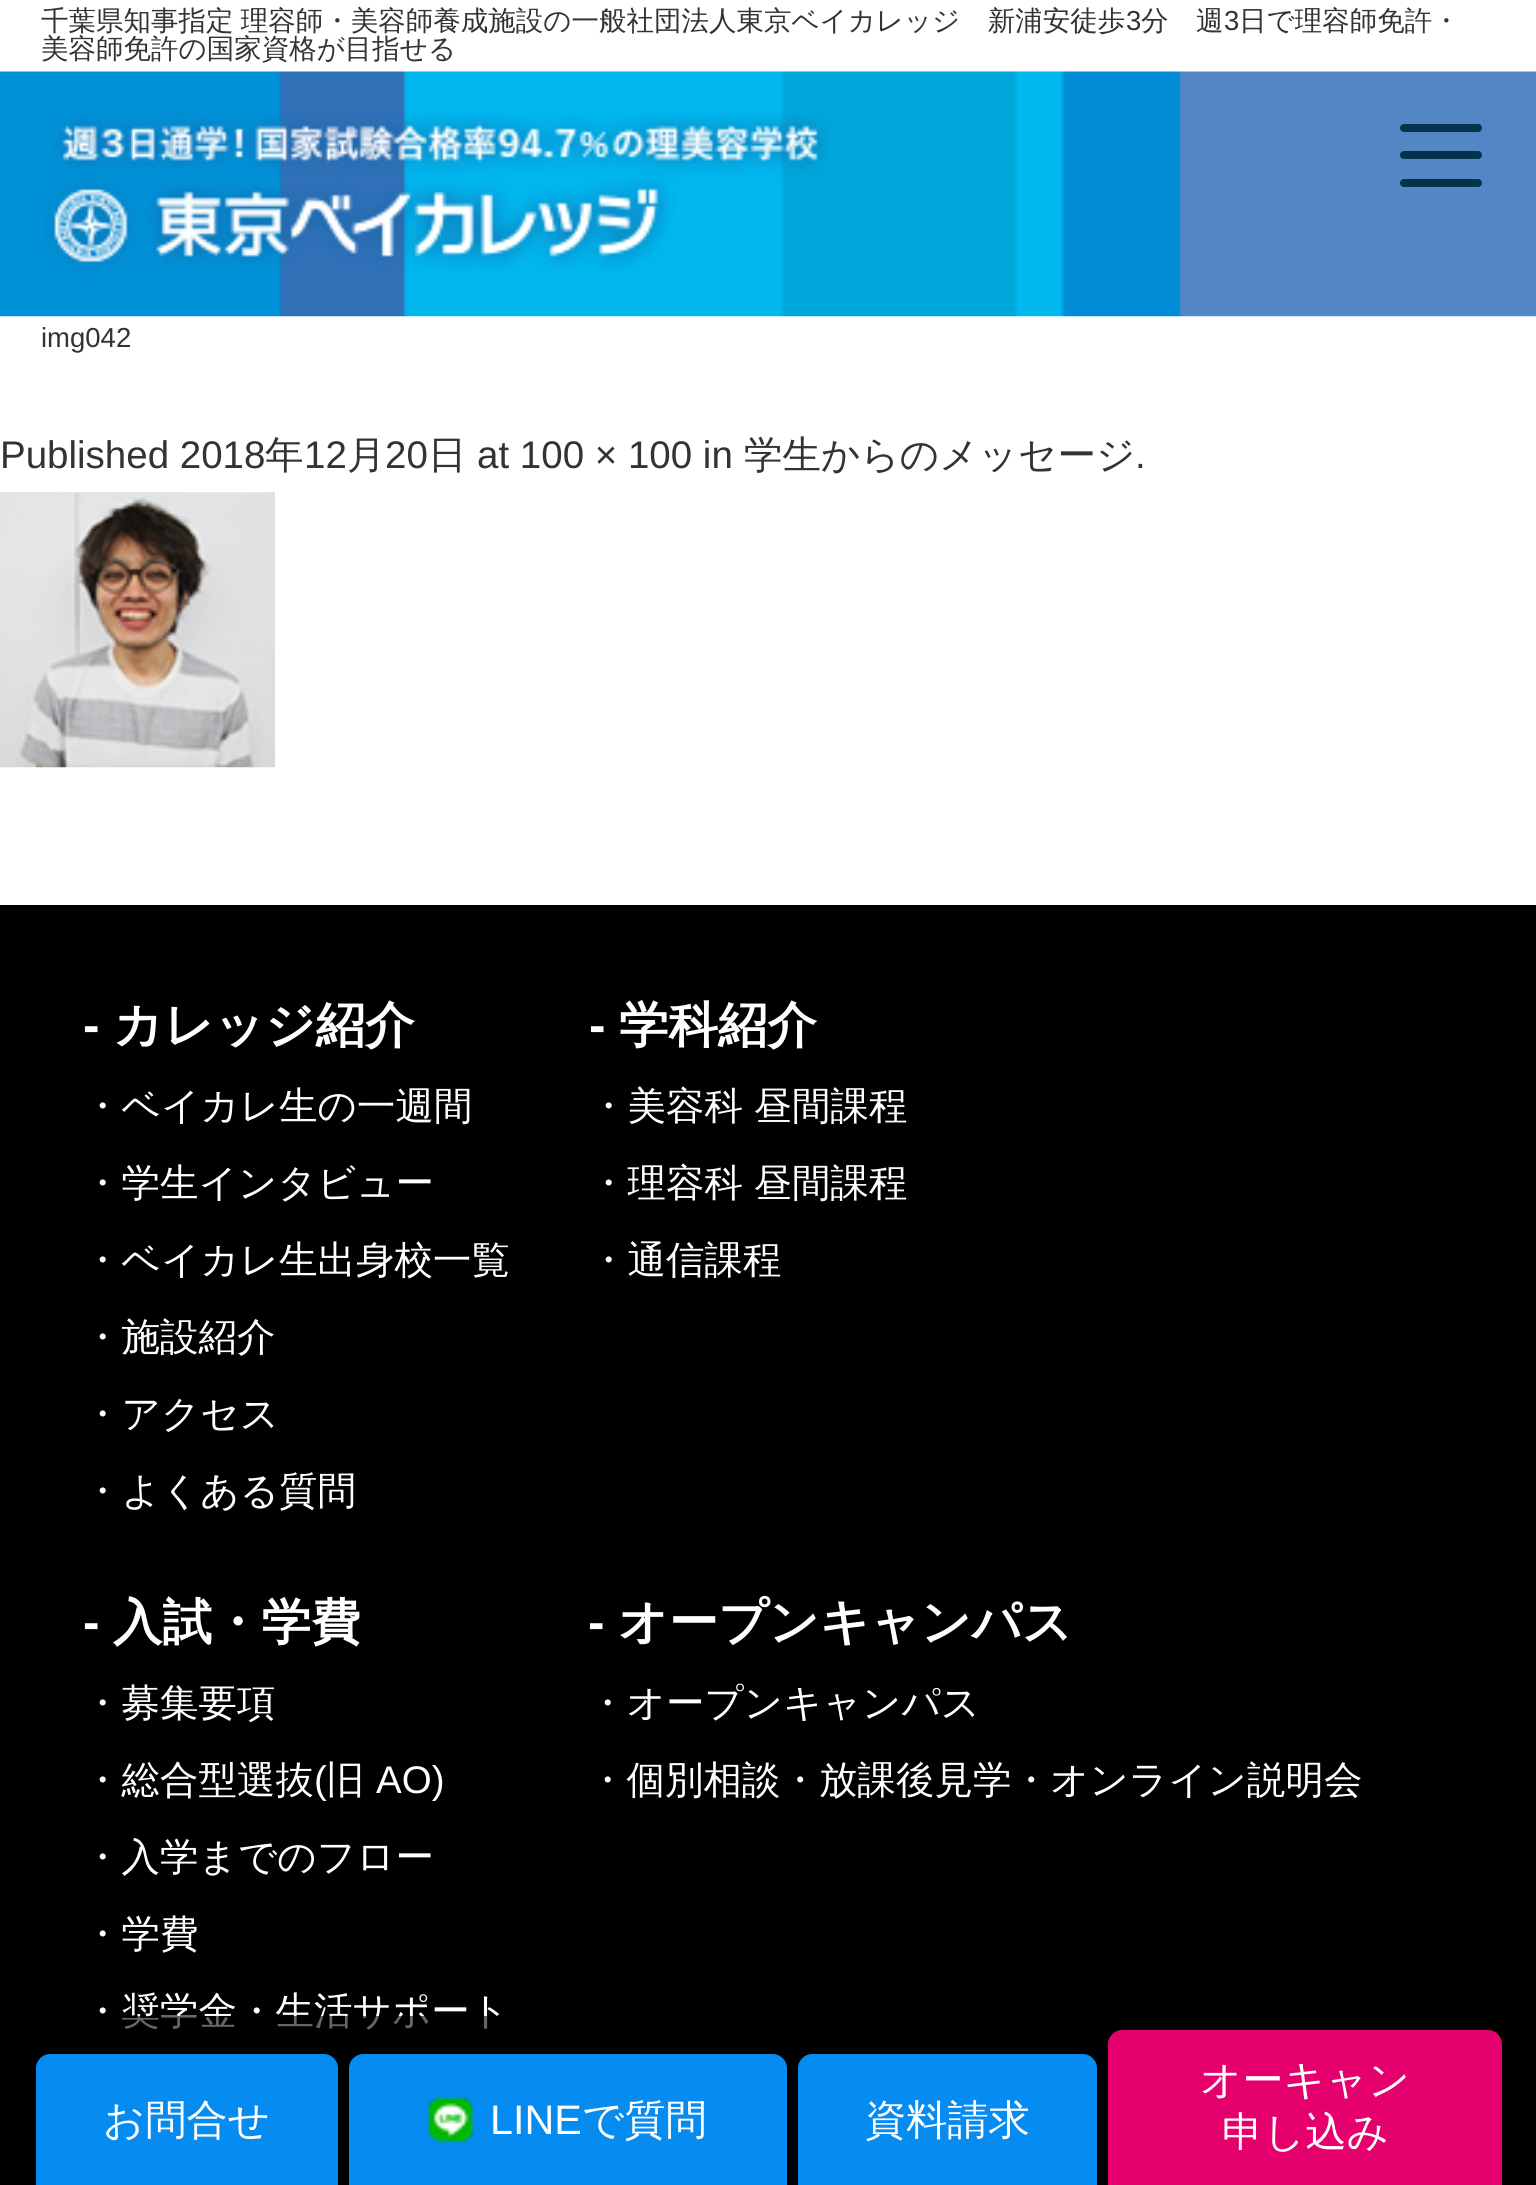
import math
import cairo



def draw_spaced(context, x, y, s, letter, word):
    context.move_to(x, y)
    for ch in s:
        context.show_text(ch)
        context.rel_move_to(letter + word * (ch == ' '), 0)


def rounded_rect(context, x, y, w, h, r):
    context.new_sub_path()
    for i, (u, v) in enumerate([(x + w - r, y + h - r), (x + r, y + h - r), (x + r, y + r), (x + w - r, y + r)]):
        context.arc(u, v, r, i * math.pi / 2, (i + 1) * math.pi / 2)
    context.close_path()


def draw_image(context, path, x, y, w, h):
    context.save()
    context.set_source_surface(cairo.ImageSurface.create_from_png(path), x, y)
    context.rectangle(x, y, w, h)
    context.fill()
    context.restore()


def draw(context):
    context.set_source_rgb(1, 1, 1)
    context.paint()
    draw_image(context, "images/1.png", 0, 71, 1536, 246)
    draw_image(context, "images/2.png", 43, 112, 786, 161)
    context.set_source_rgb(4 / 255, 52 / 255, 75 / 255)
    rounded_rect(context, 1400, 124, 82, 8, 4)
    context.fill()
    rounded_rect(context, 1400, 151, 82, 8, 4)
    context.fill()
    rounded_rect(context, 1400, 179, 82, 8, 4)
    context.fill()
    draw_image(context, "images/3.png", 0, 492, 275, 276)
    context.set_source_rgb(0, 0, 0)
    context.rectangle(0, 905, 1536, 1280)
    context.fill()
    context.set_source_rgb(6 / 255, 139 / 255, 241 / 255)
    context.new_path()
    context.move_to(50, 2054)
    context.line_to(324, 2054)
    context.curve_to(331.5, 2054, 338, 2060.5, 338, 2068)
    context.line_to(338, 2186)
    context.line_to(36, 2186)
    context.line_to(36, 2068)
    context.curve_to(36, 2060.5, 42.5, 2054, 50, 2054)
    context.close_path()
    context.fill()
    context.new_path()
    context.move_to(363, 2054)
    context.line_to(773, 2054)
    context.curve_to(780.5, 2054, 787, 2060.5, 787, 2068)
    context.line_to(787, 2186)
    context.line_to(349, 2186)
    context.line_to(349, 2068)
    context.curve_to(349, 2060.5, 355.5, 2054, 363, 2054)
    context.close_path()
    context.fill()
    draw_image(context, "images/4.png", 428, 2097, 46, 46)
    context.new_path()
    context.move_to(812, 2054)
    context.line_to(1083, 2054)
    context.curve_to(1090.5, 2054, 1097, 2060.5, 1097, 2068)
    context.line_to(1097, 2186)
    context.line_to(798, 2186)
    context.line_to(798, 2068)
    context.curve_to(798, 2060.5, 804.5, 2054, 812, 2054)
    context.close_path()
    context.fill()
    context.set_source_rgb(229 / 255, 0, 110 / 255)
    context.new_path()
    context.move_to(1122, 2030)
    context.line_to(1488, 2030)
    context.curve_to(1495.5, 2030, 1502, 2036.5, 1502, 2044)
    context.line_to(1502, 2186)
    context.line_to(1108, 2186)
    context.line_to(1108, 2044)
    context.curve_to(1108, 2036.5, 1114.5, 2030, 1122, 2030)
    context.close_path()
    context.fill()
    context.select_font_face("WenQuanYi Zen Hei Medium")
    context.set_font_size(27.5)
    context.set_source_rgb(51 / 255, 51 / 255, 51 / 255)
    draw_spaced(context, 41, 30, "千葉県知事指定 理容師・美容師養成施設の一般社団法人東京ベイカレッジ　新浦安徒歩", 0, -1)
    context.select_font_face("Liberation Sans")
    context.move_to(1126, 30)
    context.show_text("3")
    context.select_font_face("WenQuanYi Zen Hei Medium")
    context.move_to(1141, 30)
    context.show_text("分　週")
    context.select_font_face("Liberation Sans")
    context.move_to(1224, 30)
    context.show_text("3")
    context.select_font_face("WenQuanYi Zen Hei Medium")
    context.move_to(1239, 30)
    context.show_text("日で理容師免許・")
    context.move_to(41, 58)
    context.show_text("美容師免許の国家資格が目指せる")
    context.select_font_face("Liberation Sans")
    context.move_to(41, 347)
    context.show_text("img042")
    context.set_font_size(38.5)
    context.move_to(0, 468)
    context.show_text("Published 2018")
    context.select_font_face("WenQuanYi Zen Hei Medium")
    context.move_to(265, 468)
    context.show_text("年")
    context.select_font_face("Liberation Sans")
    context.move_to(304, 468)
    context.show_text("12")
    context.select_font_face("WenQuanYi Zen Hei Medium")
    context.move_to(347, 468)
    context.show_text("月")
    context.select_font_face("Liberation Sans")
    context.move_to(385, 468)
    context.show_text("20")
    context.select_font_face("WenQuanYi Zen Hei Medium")
    context.move_to(428, 468)
    context.show_text("日")
    context.select_font_face("Liberation Sans")
    context.move_to(477, 468)
    context.show_text("at 100 × 100 in")
    context.select_font_face("WenQuanYi Zen Hei Medium")
    context.move_to(744, 468)
    context.show_text("学生からのメッセージ")
    context.select_font_face("Liberation Sans")
    context.move_to(1135, 468)
    context.show_text(".")
    context.select_font_face("Liberation Sans", cairo.FontSlant.NORMAL, cairo.FontWeight.BOLD)
    context.set_font_size(49.5)
    context.set_source_rgb(1, 1, 1)
    context.move_to(83, 1042)
    context.show_text("-")
    context.select_font_face("WenQuanYi Zen Hei", cairo.FontSlant.NORMAL, cairo.FontWeight.BOLD)
    context.move_to(113, 1042)
    context.show_text("カレッジ紹介")
    context.select_font_face("WenQuanYi Zen Hei Medium")
    context.set_font_size(38.5)
    context.move_to(83, 1119)
    context.show_text("・ベイカレ生の一週間")
    context.move_to(83, 1196)
    context.show_text("・学生インタビュー")
    context.move_to(83, 1273)
    context.show_text("・ベイカレ生出身校一覧")
    context.move_to(83, 1350)
    context.show_text("・施設紹介")
    context.move_to(83, 1427)
    context.show_text("・アクセス")
    context.move_to(83, 1504)
    context.show_text("・よくある質問")
    context.select_font_face("Liberation Sans", cairo.FontSlant.NORMAL, cairo.FontWeight.BOLD)
    context.set_font_size(49.5)
    context.move_to(589, 1042)
    context.show_text("-")
    context.select_font_face("WenQuanYi Zen Hei", cairo.FontSlant.NORMAL, cairo.FontWeight.BOLD)
    context.move_to(619, 1042)
    context.show_text("学科紹介")
    context.select_font_face("WenQuanYi Zen Hei Medium")
    context.set_font_size(38.5)
    draw_spaced(context, 589, 1119, "・美容科 昼間課程", 0, -1)
    draw_spaced(context, 589, 1196, "・理容科 昼間課程", 0, -1)
    context.move_to(589, 1273)
    context.show_text("・通信課程")
    context.select_font_face("Liberation Sans", cairo.FontSlant.NORMAL, cairo.FontWeight.BOLD)
    context.set_font_size(49.5)
    context.move_to(83, 1639)
    context.show_text("-")
    context.select_font_face("WenQuanYi Zen Hei", cairo.FontSlant.NORMAL, cairo.FontWeight.BOLD)
    context.move_to(113, 1639)
    context.show_text("入試・学費")
    context.select_font_face("WenQuanYi Zen Hei Medium")
    context.set_font_size(38.5)
    context.move_to(83, 1716)
    context.show_text("・募集要項")
    context.move_to(83, 1793)
    context.show_text("・総合型選抜")
    context.select_font_face("Liberation Sans")
    context.move_to(314, 1793)
    context.show_text("(")
    context.select_font_face("WenQuanYi Zen Hei Medium")
    context.move_to(326, 1793)
    context.show_text("旧")
    context.select_font_face("Liberation Sans")
    context.move_to(376, 1793)
    context.show_text("AO)")
    context.select_font_face("WenQuanYi Zen Hei Medium")
    context.move_to(83, 1870)
    context.show_text("・入学までのフロー")
    context.move_to(83, 1947)
    context.show_text("・学費")
    context.move_to(83, 2024)
    context.show_text("・奨学金・生活サポート")
    context.select_font_face("Liberation Sans", cairo.FontSlant.NORMAL, cairo.FontWeight.BOLD)
    context.set_font_size(49.5)
    context.move_to(588, 1639)
    context.show_text("-")
    context.select_font_face("WenQuanYi Zen Hei", cairo.FontSlant.NORMAL, cairo.FontWeight.BOLD)
    context.move_to(618, 1639)
    context.show_text("オープンキャンパス")
    context.select_font_face("WenQuanYi Zen Hei Medium")
    context.set_font_size(38.5)
    context.move_to(588, 1716)
    context.show_text("・オープンキャンパス")
    context.move_to(588, 1793)
    context.show_text("・個別相談・放課後見学・オンライン説明会")
    context.set_source_rgba(0, 0, 0, 0.6)
    context.rectangle(121, 2016, 366, 14)
    context.fill()
    context.set_font_size(41.25)
    context.set_source_rgb(1, 1, 1)
    context.move_to(103, 2134)
    context.show_text("お問合せ")
    context.select_font_face("Liberation Sans")
    context.move_to(490, 2134)
    context.show_text("LINE")
    context.select_font_face("WenQuanYi Zen Hei Medium")
    context.move_to(582, 2134)
    context.show_text("で質問")
    context.move_to(865, 2134)
    context.show_text("資料請求")
    context.move_to(1200, 2094)
    context.show_text("オーキャン")
    context.move_to(1222, 2146)
    context.show_text("申し込み")


surface = cairo.ImageSurface(cairo.Format.RGB24, 1536, 2185)
context = cairo.Context(surface)
options = cairo.FontOptions()
options.set_hint_metrics(cairo.HintMetrics.OFF)
options.set_hint_style(cairo.HintStyle.NONE)
context.set_font_options(options)
context.set_miter_limit(4)
draw(context)
surface.write_to_png("out.png")
